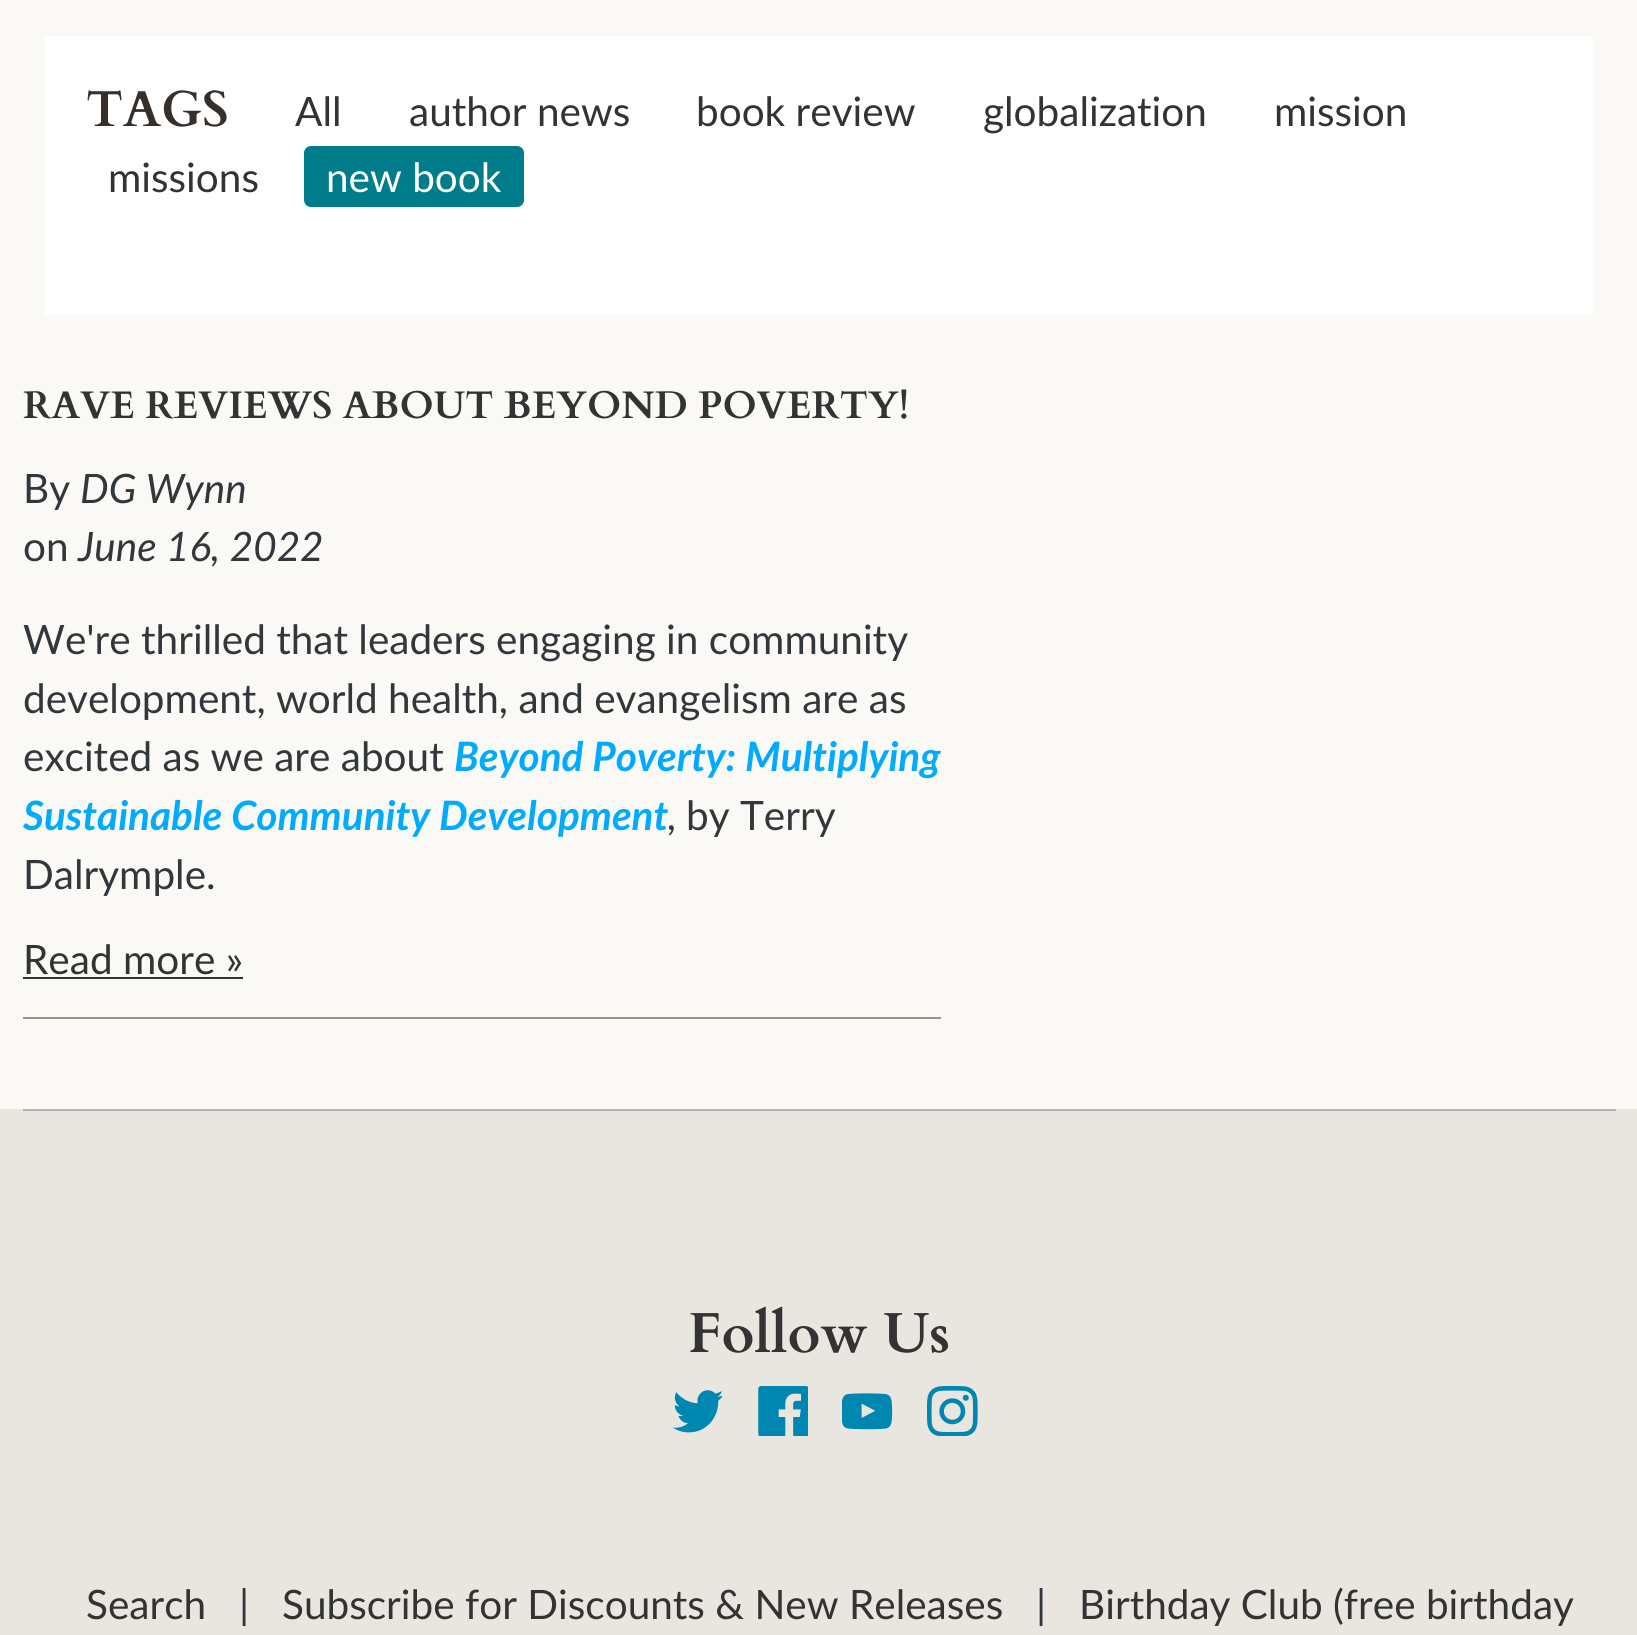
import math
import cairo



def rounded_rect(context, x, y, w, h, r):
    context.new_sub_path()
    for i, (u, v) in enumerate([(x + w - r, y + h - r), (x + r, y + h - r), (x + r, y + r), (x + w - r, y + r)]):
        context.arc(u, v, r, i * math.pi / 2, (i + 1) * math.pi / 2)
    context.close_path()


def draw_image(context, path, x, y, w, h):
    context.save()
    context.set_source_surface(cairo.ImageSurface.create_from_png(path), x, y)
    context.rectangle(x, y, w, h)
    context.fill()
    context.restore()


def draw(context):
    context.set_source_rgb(250 / 255, 249 / 255, 246 / 255)
    context.paint()
    context.set_source_rgb(1, 1, 1)
    context.rectangle(45, 36, 1548, 279)
    context.fill()
    context.set_source_rgb(0, 124 / 255, 138 / 255)
    rounded_rect(context, 304, 146, 220, 61, 7)
    context.fill()
    context.set_source_rgb(155 / 255, 151 / 255, 133 / 255)
    context.rectangle(23, 1017, 918, 2)
    context.fill()
    context.set_source_rgb(51 / 255, 51 / 255, 51 / 255)
    context.rectangle(23, 977, 220, 2)
    context.fill()
    context.set_source_rgb(232 / 255, 230 / 255, 223 / 255)
    context.rectangle(0, 1109, 1637, 526)
    context.fill()
    context.set_source_rgb(180 / 255, 180 / 255, 180 / 255)
    context.rectangle(23, 1109, 1593, 2)
    context.fill()
    draw_image(context, "images/1.png", 673, 1390, 49, 43)
    draw_image(context, "images/2.png", 758, 1386, 50, 50)
    draw_image(context, "images/3.png", 842, 1393, 51, 37)
    draw_image(context, "images/4.png", 927, 1386, 51, 50)
    context.select_font_face("Cardo", cairo.FontSlant.NORMAL, cairo.FontWeight.BOLD)
    context.set_font_size(50.5)
    context.set_source_rgb(55 / 255, 47 / 255, 43 / 255)
    context.move_to(86, 126)
    context.show_text("TAGS")
    context.select_font_face("Lato")
    context.set_font_size(40.5)
    context.set_source_rgb(51 / 255, 51 / 255, 51 / 255)
    context.move_to(295, 126)
    context.show_text("All")
    context.move_to(409, 126)
    context.show_text("author news")
    context.move_to(696, 126)
    context.show_text("book review")
    context.move_to(983, 126)
    context.show_text("globalization")
    context.move_to(1274, 126)
    context.show_text("mission")
    context.move_to(108, 192)
    context.show_text("missions")
    context.set_source_rgb(1, 1, 1)
    context.move_to(326, 192)
    context.show_text("new book")
    context.select_font_face("Cardo", cairo.FontSlant.NORMAL, cairo.FontWeight.BOLD)
    context.set_font_size(38.5)
    context.set_source_rgb(51 / 255, 51 / 255, 51 / 255)
    context.move_to(23, 418)
    context.show_text("RAVE REVIEWS ABOUT BEYOND POVERTY!")
    context.select_font_face("Lato")
    context.set_font_size(40.5)
    context.set_source_rgb(50 / 255, 55 / 255, 60 / 255)
    context.move_to(23, 503)
    context.show_text("By")
    context.select_font_face("Lato", cairo.FontSlant.ITALIC)
    context.move_to(80, 503)
    context.show_text("DG Wynn")
    context.select_font_face("Lato")
    context.move_to(23, 561)
    context.show_text("on")
    context.select_font_face("Lato", cairo.FontSlant.ITALIC)
    context.move_to(78, 561)
    context.show_text("June 16, 2022")
    context.select_font_face("Lato")
    context.move_to(23, 654)
    context.show_text("We're thrilled that leaders engaging in community")
    context.move_to(23, 713)
    context.show_text("development, world health, and evangelism are as")
    context.move_to(23, 771)
    context.show_text("excited as we are about")
    context.select_font_face("Lato", cairo.FontSlant.ITALIC, cairo.FontWeight.BOLD)
    context.set_source_rgb(0, 170 / 255, 1)
    context.move_to(454, 771)
    context.show_text("Beyond Poverty: Multiplying")
    context.move_to(23, 830)
    context.show_text("Sustainable Community Development")
    context.select_font_face("Lato", cairo.FontSlant.ITALIC)
    context.set_source_rgb(50 / 255, 55 / 255, 60 / 255)
    context.move_to(668, 830)
    context.show_text(",")
    context.select_font_face("Lato")
    context.move_to(686, 830)
    context.show_text("by Terry")
    context.move_to(23, 889)
    context.show_text("Dalrymple.")
    context.set_source_rgb(51 / 255, 51 / 255, 51 / 255)
    context.move_to(23, 974)
    context.show_text("Read more »")
    context.select_font_face("Cardo", cairo.FontSlant.NORMAL, cairo.FontWeight.BOLD)
    context.set_font_size(56.5)
    context.move_to(688, 1352)
    context.show_text("Follow Us")
    context.select_font_face("Lato")
    context.set_font_size(40.5)
    context.move_to(86, 1619)
    context.show_text("Search")
    context.set_source_rgb(50 / 255, 55 / 255, 60 / 255)
    context.move_to(239, 1619)
    context.show_text("|")
    context.set_source_rgb(51 / 255, 51 / 255, 51 / 255)
    context.move_to(282, 1619)
    context.show_text("Subscribe for Discounts & New Releases")
    context.set_source_rgb(50 / 255, 55 / 255, 60 / 255)
    context.move_to(1036, 1619)
    context.show_text("|")
    context.set_source_rgb(51 / 255, 51 / 255, 51 / 255)
    context.move_to(1079, 1619)
    context.show_text("Birthday Club (free birthday")


surface = cairo.ImageSurface(cairo.Format.RGB24, 1637, 1635)
context = cairo.Context(surface)
options = cairo.FontOptions()
options.set_hint_metrics(cairo.HintMetrics.OFF)
options.set_hint_style(cairo.HintStyle.NONE)
context.set_font_options(options)
context.set_miter_limit(4)
draw(context)
surface.write_to_png("out.png")
